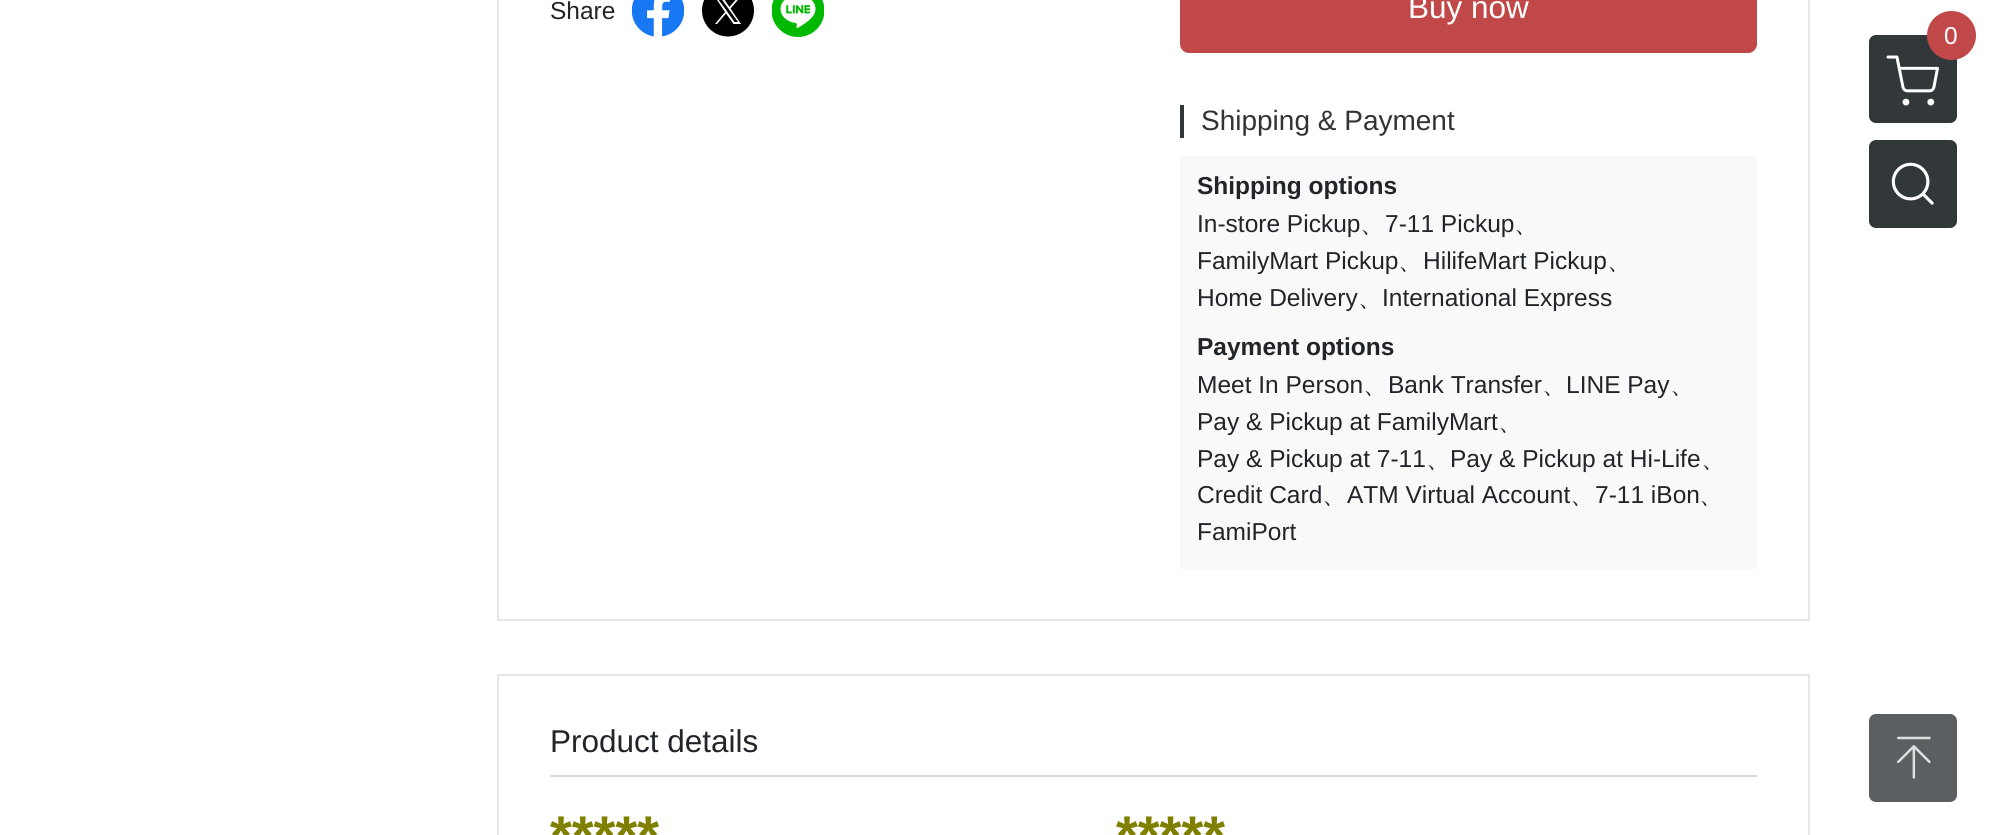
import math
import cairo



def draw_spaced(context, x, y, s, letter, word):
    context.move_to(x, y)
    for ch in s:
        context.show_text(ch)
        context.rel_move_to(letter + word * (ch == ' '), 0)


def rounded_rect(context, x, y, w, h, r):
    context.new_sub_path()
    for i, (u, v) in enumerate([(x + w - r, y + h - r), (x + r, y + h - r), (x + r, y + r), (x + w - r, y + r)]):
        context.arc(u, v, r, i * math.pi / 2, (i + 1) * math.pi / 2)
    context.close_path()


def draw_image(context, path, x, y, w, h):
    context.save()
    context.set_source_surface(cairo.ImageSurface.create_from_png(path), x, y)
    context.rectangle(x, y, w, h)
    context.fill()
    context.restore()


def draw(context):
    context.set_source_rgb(1, 1, 1)
    context.paint()
    draw_image(context, "images/1.png", 632, 0, 52, 37)
    context.set_source_rgb(0, 0, 0)
    context.arc(728, 10.5, 26, 0, 2 * math.pi)
    context.fill()
    context.set_source_rgb(1, 1, 1)
    context.new_path()
    context.move_to(730.5, 8.5)
    context.line_to(740.5, -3)
    context.line_to(738, -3)
    context.line_to(729.5, 7)
    context.line_to(722.5, -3)
    context.line_to(715, -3)
    context.line_to(725, 12)
    context.line_to(715, 24)
    context.line_to(717, 24)
    context.line_to(726, 13.5)
    context.line_to(733.5, 24)
    context.line_to(741, 24)
    context.close_path()
    context.move_to(727.5, 12)
    context.line_to(718, -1)
    context.line_to(721.5, -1)
    context.line_to(738, 22)
    context.line_to(734.5, 22)
    context.close_path()
    context.fill()
    draw_image(context, "images/2.png", 772, 0, 52, 37)
    context.set_source_rgb(50 / 255, 55 / 255, 58 / 255)
    context.rectangle(1180, 105, 4, 33)
    context.fill()
    context.set_source_rgb(249 / 255, 249 / 255, 249 / 255)
    context.rectangle(1180, 156, 577, 413)
    context.fill()
    context.rectangle(498, -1, 1311, 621)
    context.set_source_rgb(230 / 255, 230 / 255, 230 / 255)
    context.stroke()
    context.set_source_rgb(193 / 255, 72 / 255, 72 / 255)
    rounded_rect(context, 1181, -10, 575, 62, 8)
    context.fill_preserve()
    context.stroke()
    context.set_source_rgb(217 / 255, 217 / 255, 217 / 255)
    context.rectangle(550, 775, 1207, 2)
    context.fill()
    context.rectangle(498, 675, 1311, 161)
    context.set_source_rgb(230 / 255, 230 / 255, 230 / 255)
    context.stroke()
    context.set_source_rgb(50 / 255, 55 / 255, 58 / 255)
    rounded_rect(context, 1870, 36, 86, 86, 6)
    context.fill_preserve()
    context.stroke()
    draw_image(context, "images/3.png", 1886, 55, 53, 51)
    context.set_source_rgb(193 / 255, 72 / 255, 72 / 255)
    context.arc(1951.5, 35.5, 24.5, 0, 2 * math.pi)
    context.fill()
    context.set_source_rgb(50 / 255, 55 / 255, 58 / 255)
    rounded_rect(context, 1870, 141, 86, 86, 6)
    context.fill_preserve()
    context.stroke()
    draw_image(context, "images/4.png", 1891, 162, 43, 43)
    context.set_source_rgb(91 / 255, 95 / 255, 97 / 255)
    rounded_rect(context, 1870, 715, 86, 86, 6)
    context.fill_preserve()
    context.stroke()
    draw_image(context, "images/5.png", 1897, 736, 34, 43)
    context.select_font_face("Liberation Sans")
    context.set_font_size(24.5)
    context.set_source_rgb(33 / 255, 37 / 255, 41 / 255)
    context.move_to(550, 19)
    context.show_text("Share")
    context.set_font_size(31.5)
    context.set_source_rgb(1, 1, 1)
    context.move_to(1408, 18)
    context.show_text("Buy now")
    context.set_font_size(28)
    context.set_source_rgb(51 / 255, 51 / 255, 51 / 255)
    context.move_to(1201, 130)
    context.show_text("Shipping & Payment")
    context.select_font_face("Liberation Sans", cairo.FontSlant.NORMAL, cairo.FontWeight.BOLD)
    context.set_font_size(24.5)
    context.set_source_rgb(33 / 255, 37 / 255, 41 / 255)
    context.move_to(1197, 194)
    context.show_text("Shipping options")
    context.select_font_face("Liberation Sans")
    context.move_to(1197, 232)
    context.show_text("In-store Pickup")
    context.select_font_face("WenQuanYi Zen Hei Medium")
    context.move_to(1360, 232)
    context.show_text("、")
    context.select_font_face("Liberation Sans")
    context.move_to(1385, 232)
    context.show_text("7-11 Pickup")
    context.select_font_face("WenQuanYi Zen Hei Medium")
    context.move_to(1514, 232)
    context.show_text("、")
    context.select_font_face("Liberation Sans")
    context.move_to(1197, 269)
    context.show_text("FamilyMart Pickup")
    context.select_font_face("WenQuanYi Zen Hei Medium")
    context.move_to(1398, 269)
    context.show_text("、")
    context.select_font_face("Liberation Sans")
    context.move_to(1423, 269)
    context.show_text("HilifeMart Pickup")
    context.select_font_face("WenQuanYi Zen Hei Medium")
    context.move_to(1607, 269)
    context.show_text("、")
    context.select_font_face("Liberation Sans")
    context.move_to(1197, 306)
    context.show_text("Home Delivery")
    context.select_font_face("WenQuanYi Zen Hei Medium")
    context.move_to(1358, 306)
    context.show_text("、")
    context.select_font_face("Liberation Sans")
    context.move_to(1382, 306)
    context.show_text("International Express")
    context.select_font_face("Liberation Sans", cairo.FontSlant.NORMAL, cairo.FontWeight.BOLD)
    context.move_to(1197, 355)
    context.show_text("Payment options")
    context.select_font_face("Liberation Sans")
    context.move_to(1197, 393)
    context.show_text("Meet In Person")
    context.select_font_face("WenQuanYi Zen Hei Medium")
    context.move_to(1363, 393)
    context.show_text("、")
    context.select_font_face("Liberation Sans")
    context.move_to(1388, 393)
    context.show_text("Bank Transfer")
    context.select_font_face("WenQuanYi Zen Hei Medium")
    context.move_to(1542, 393)
    context.show_text("、")
    context.select_font_face("Liberation Sans")
    context.move_to(1566, 393)
    context.show_text("LINE Pay")
    context.select_font_face("WenQuanYi Zen Hei Medium")
    context.move_to(1670, 393)
    context.show_text("、")
    context.select_font_face("Liberation Sans")
    context.move_to(1197, 430)
    context.show_text("Pay & Pickup at FamilyMart")
    context.select_font_face("WenQuanYi Zen Hei Medium")
    context.move_to(1498, 430)
    context.show_text("、")
    context.select_font_face("Liberation Sans")
    context.move_to(1197, 467)
    context.show_text("Pay & Pickup at 7-11")
    context.select_font_face("WenQuanYi Zen Hei Medium")
    context.move_to(1426, 467)
    context.show_text("、")
    context.select_font_face("Liberation Sans")
    context.move_to(1450, 467)
    context.show_text("Pay & Pickup at Hi-Life")
    context.select_font_face("WenQuanYi Zen Hei Medium")
    context.move_to(1701, 467)
    context.show_text("、")
    context.select_font_face("Liberation Sans")
    context.move_to(1197, 503)
    context.show_text("Credit Card")
    context.select_font_face("WenQuanYi Zen Hei Medium")
    context.move_to(1322, 503)
    context.show_text("、")
    context.select_font_face("Liberation Sans")
    context.move_to(1347, 503)
    context.show_text("ATM Virtual Account")
    context.select_font_face("WenQuanYi Zen Hei Medium")
    context.move_to(1570, 503)
    context.show_text("、")
    context.select_font_face("Liberation Sans")
    context.move_to(1595, 503)
    context.show_text("7-11 iBon")
    context.select_font_face("WenQuanYi Zen Hei Medium")
    context.move_to(1699, 503)
    context.show_text("、")
    context.select_font_face("Liberation Sans")
    context.move_to(1197, 540)
    context.show_text("FamiPort")
    context.set_font_size(31.5)
    context.move_to(550, 752)
    context.show_text("Product details")
    context.select_font_face("Liberation Sans", cairo.FontSlant.NORMAL, cairo.FontWeight.BOLD)
    context.set_font_size(56)
    context.set_source_rgb(128 / 255, 128 / 255, 0)
    context.move_to(550, 855)
    context.show_text("*****")
    context.move_to(1116, 855)
    context.show_text("*****")
    context.select_font_face("Liberation Sans")
    context.set_font_size(24.5)
    context.set_source_rgb(1, 1, 1)
    draw_spaced(context, 1944, 44, "0", 2, 0)


surface = cairo.ImageSurface(cairo.Format.RGB24, 1990, 835)
context = cairo.Context(surface)
options = cairo.FontOptions()
options.set_hint_metrics(cairo.HintMetrics.OFF)
options.set_hint_style(cairo.HintStyle.NONE)
context.set_font_options(options)
context.set_miter_limit(4)
draw(context)
surface.write_to_png("out.png")
